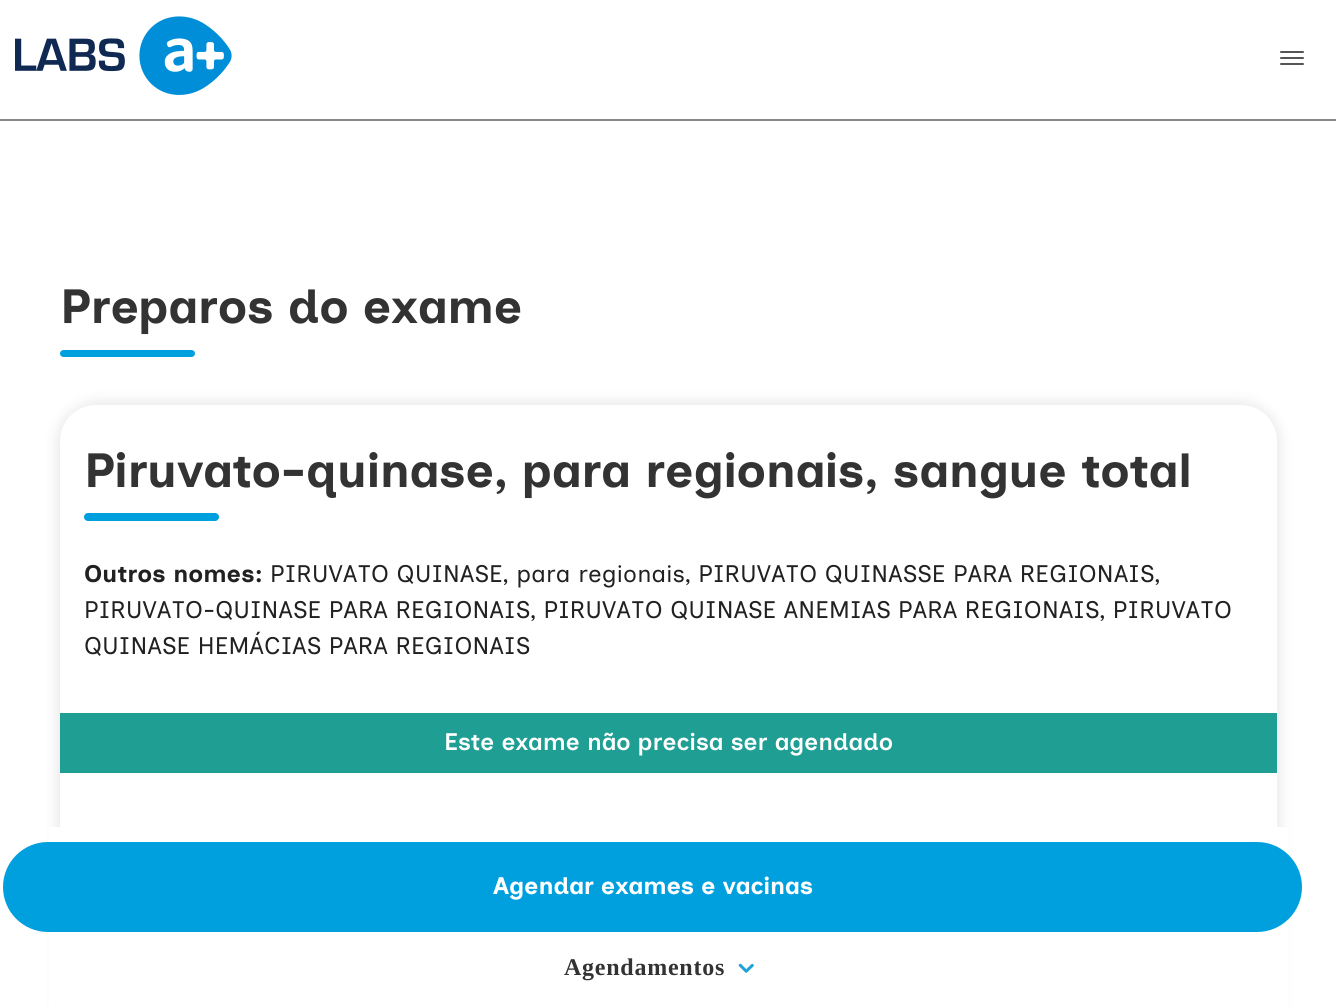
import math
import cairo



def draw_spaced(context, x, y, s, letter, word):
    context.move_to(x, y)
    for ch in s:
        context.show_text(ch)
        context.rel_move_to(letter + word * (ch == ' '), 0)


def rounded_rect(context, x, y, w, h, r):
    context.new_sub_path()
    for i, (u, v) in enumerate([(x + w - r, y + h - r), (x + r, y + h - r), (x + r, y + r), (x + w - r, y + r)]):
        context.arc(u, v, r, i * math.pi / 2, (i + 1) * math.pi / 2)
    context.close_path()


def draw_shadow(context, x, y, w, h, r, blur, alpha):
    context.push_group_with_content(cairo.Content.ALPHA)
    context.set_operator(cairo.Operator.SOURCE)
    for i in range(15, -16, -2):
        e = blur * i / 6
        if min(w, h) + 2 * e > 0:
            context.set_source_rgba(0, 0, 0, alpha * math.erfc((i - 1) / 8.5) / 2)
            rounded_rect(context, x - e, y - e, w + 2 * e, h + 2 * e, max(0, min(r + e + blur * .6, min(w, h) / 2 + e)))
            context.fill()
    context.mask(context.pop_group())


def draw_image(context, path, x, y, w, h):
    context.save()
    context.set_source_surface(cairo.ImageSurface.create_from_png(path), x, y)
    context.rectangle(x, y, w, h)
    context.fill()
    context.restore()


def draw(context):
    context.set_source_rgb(1, 1, 1)
    context.paint()
    context.set_source_rgb(136 / 255, 136 / 255, 136 / 255)
    context.rectangle(0, 119, 1336, 2)
    context.fill()
    draw_image(context, "images/1.png", 15, 16, 217, 79)
    context.set_source_rgb(85 / 255, 85 / 255, 85 / 255)
    rounded_rect(context, 1280, 51, 24, 2, 1)
    context.fill()
    rounded_rect(context, 1280, 57, 24, 2, 1)
    context.fill()
    rounded_rect(context, 1280, 63, 24, 2, 1)
    context.fill()
    context.set_source_rgb(0, 159 / 255, 222 / 255)
    rounded_rect(context, 60, 350, 135, 7, 3.5)
    context.fill()
    context.set_source_rgb(117 / 255, 117 / 255, 117 / 255)
    draw_shadow(context, 56, 401, 1225, 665, 41, 6, 0.15)
    context.set_source_rgb(1, 1, 1)
    rounded_rect(context, 60, 405, 1217, 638, 36)
    context.fill()
    context.set_source_rgb(0, 159 / 255, 222 / 255)
    rounded_rect(context, 84, 513, 135, 8, 4)
    context.fill()
    context.set_source_rgb(31 / 255, 158 / 255, 148 / 255)
    context.rectangle(60, 713, 1217, 60)
    context.fill()
    context.set_source_rgb(1, 1, 1)
    context.rectangle(49, 827, 1239, 180)
    context.fill()
    context.set_source_rgb(0, 159 / 255, 222 / 255)
    rounded_rect(context, 3, 842, 1299, 90, 45)
    context.fill()
    draw_image(context, "images/2.png", 738, 963, 16, 10)
    context.select_font_face("Inclusive Sans", cairo.FontSlant.NORMAL, cairo.FontWeight.BOLD)
    context.set_font_size(48)
    context.set_source_rgb(51 / 255, 51 / 255, 51 / 255)
    context.move_to(60, 323)
    context.show_text("Preparos do exame")
    context.move_to(84, 487)
    context.show_text("Piruvato-quinase, para regionais, sangue total")
    context.set_font_size(24)
    context.set_source_rgb(33 / 255, 33 / 255, 33 / 255)
    draw_spaced(context, 84, 582, "Outros nomes:", 0.23, 0)
    context.select_font_face("Inclusive Sans")
    draw_spaced(context, 270, 582, "PIRUVATO QUINASE, para regionais, PIRUVATO QUINASSE PARA REGIONAIS,", 0.23, 0)
    draw_spaced(context, 84, 618, "PIRUVATO-QUINASE PARA REGIONAIS, PIRUVATO QUINASE ANEMIAS PARA REGIONAIS, PIRUVATO", 0.23, 0)
    draw_spaced(context, 84, 654, "QUINASE HEMÁCIAS PARA REGIONAIS", 0.23, 0)
    context.select_font_face("Inclusive Sans SemiBold")
    context.set_source_rgb(1, 1, 1)
    context.move_to(444, 750)
    context.show_text("Este exame não precisa ser agendado")
    context.select_font_face("Inclusive Sans", cairo.FontSlant.NORMAL, cairo.FontWeight.BOLD)
    context.move_to(493, 894)
    context.show_text("Agendar exames e vacinas")
    context.select_font_face("Liberation Serif", cairo.FontSlant.NORMAL, cairo.FontWeight.BOLD)
    context.set_source_rgb(51 / 255, 51 / 255, 51 / 255)
    draw_spaced(context, 564, 975, "Agendamentos", 0.75, 0)


surface = cairo.ImageSurface(cairo.Format.RGB24, 1336, 1007)
context = cairo.Context(surface)
options = cairo.FontOptions()
options.set_hint_metrics(cairo.HintMetrics.OFF)
options.set_hint_style(cairo.HintStyle.NONE)
context.set_font_options(options)
context.set_miter_limit(4)
draw(context)
surface.write_to_png("out.png")
